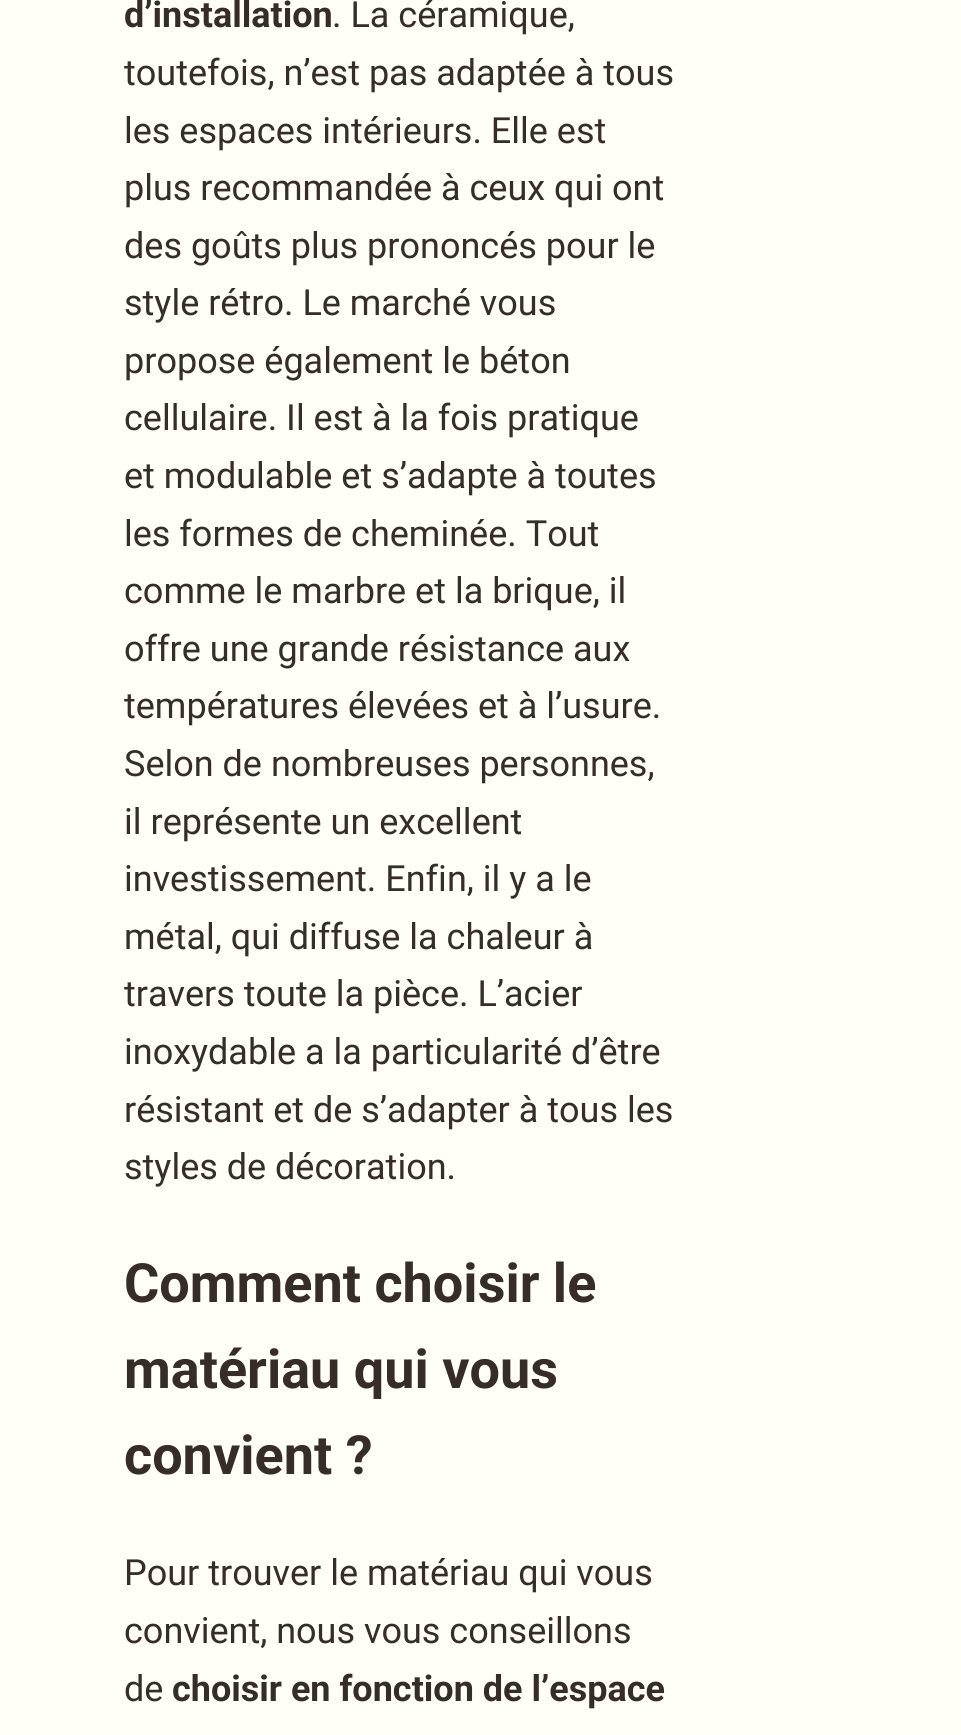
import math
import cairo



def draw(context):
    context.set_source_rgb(1, 254 / 255, 247 / 255)
    context.paint()
    context.select_font_face("Roboto", cairo.FontSlant.NORMAL, cairo.FontWeight.BOLD)
    context.set_font_size(36)
    context.set_source_rgb(54 / 255, 44 / 255, 40 / 255)
    context.move_to(124, 27)
    context.show_text("d’installation")
    context.select_font_face("Roboto")
    context.move_to(332, 27)
    context.show_text(". La céramique,")
    context.move_to(124, 85)
    context.show_text("toutefois, n’est pas adaptée à tous")
    context.move_to(124, 143)
    context.show_text("les espaces intérieurs. Elle est")
    context.move_to(124, 200)
    context.show_text("plus recommandée à ceux qui ont")
    context.move_to(124, 258)
    context.show_text("des goûts plus prononcés pour le")
    context.move_to(124, 315)
    context.show_text("style rétro. Le marché vous")
    context.move_to(124, 373)
    context.show_text("propose également le béton")
    context.move_to(124, 430)
    context.show_text("cellulaire. Il est à la fois pratique")
    context.move_to(124, 488)
    context.show_text("et modulable et s’adapte à toutes")
    context.move_to(124, 546)
    context.show_text("les formes de cheminée. Tout")
    context.move_to(124, 603)
    context.show_text("comme le marbre et la brique, il")
    context.move_to(124, 661)
    context.show_text("offre une grande résistance aux")
    context.move_to(124, 718)
    context.show_text("températures élevées et à l’usure.")
    context.move_to(124, 776)
    context.show_text("Selon de nombreuses personnes,")
    context.move_to(124, 834)
    context.show_text("il représente un excellent")
    context.move_to(124, 891)
    context.show_text("investissement. Enfin, il y a le")
    context.move_to(124, 949)
    context.show_text("métal, qui diffuse la chaleur à")
    context.move_to(124, 1006)
    context.show_text("travers toute la pièce. L’acier")
    context.move_to(124, 1064)
    context.show_text("inoxydable a la particularité d’être")
    context.move_to(124, 1122)
    context.show_text("résistant et de s’adapter à tous les")
    context.move_to(124, 1179)
    context.show_text("styles de décoration.")
    context.select_font_face("Roboto", cairo.FontSlant.NORMAL, cairo.FontWeight.BOLD)
    context.set_font_size(54)
    context.move_to(124, 1302)
    context.show_text("Comment choisir le")
    context.move_to(124, 1388)
    context.show_text("matériau qui vous")
    context.move_to(124, 1474)
    context.show_text("convient ?")
    context.select_font_face("Roboto")
    context.set_font_size(36)
    context.move_to(124, 1585)
    context.show_text("Pour trouver le matériau qui vous")
    context.move_to(124, 1643)
    context.show_text("convient, nous vous conseillons")
    context.move_to(124, 1701)
    context.show_text("de")
    context.select_font_face("Roboto", cairo.FontSlant.NORMAL, cairo.FontWeight.BOLD)
    context.move_to(172, 1701)
    context.show_text("choisir en fonction de l’espace")


surface = cairo.ImageSurface(cairo.Format.RGB24, 961, 1735)
context = cairo.Context(surface)
options = cairo.FontOptions()
options.set_hint_metrics(cairo.HintMetrics.OFF)
options.set_hint_style(cairo.HintStyle.NONE)
context.set_font_options(options)
context.set_miter_limit(4)
draw(context)
surface.write_to_png("out.png")
